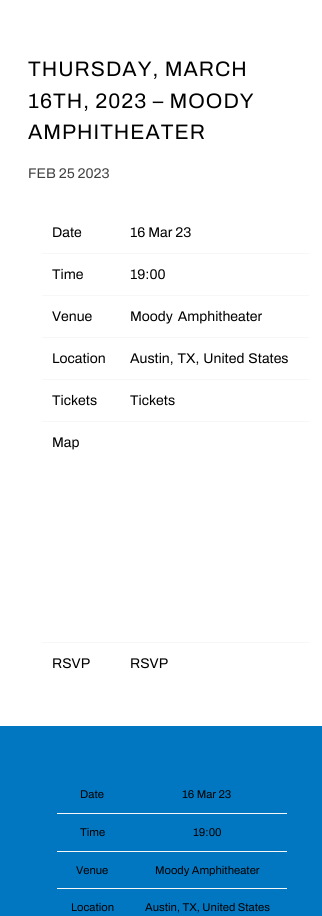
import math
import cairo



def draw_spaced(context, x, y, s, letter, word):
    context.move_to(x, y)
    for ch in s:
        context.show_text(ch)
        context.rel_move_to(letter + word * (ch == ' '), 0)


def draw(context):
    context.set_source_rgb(1, 1, 1)
    context.paint()
    context.set_source_rgb(247 / 255, 247 / 255, 247 / 255)
    context.rectangle(42, 253, 267, 1)
    context.fill()
    context.rectangle(42, 295, 267, 1)
    context.fill()
    context.rectangle(42, 337, 267, 1)
    context.fill()
    context.rectangle(42, 379, 267, 1)
    context.fill()
    context.rectangle(42, 421, 267, 1)
    context.fill()
    context.rectangle(42, 642, 267, 1)
    context.fill()
    context.set_source_rgb(1 / 255, 119 / 255, 193 / 255)
    context.rectangle(0, 726, 322, 190)
    context.fill()
    context.set_source_rgb(247 / 255, 247 / 255, 247 / 255)
    context.rectangle(57, 813, 230, 1)
    context.fill()
    context.rectangle(57, 851, 230, 1)
    context.fill()
    context.rectangle(57, 888, 230, 1)
    context.fill()
    context.select_font_face("Archivo")
    context.set_font_size(21)
    context.set_source_rgb(0, 0, 0)
    draw_spaced(context, 28, 76, "THURSDAY, MARCH", 1, 0)
    draw_spaced(context, 28, 108, "16TH, 2023 – MOODY", 1, 0)
    draw_spaced(context, 28, 139, "AMPHITHEATER", 1, 0)
    context.set_font_size(14)
    context.set_source_rgb(64 / 255, 64 / 255, 64 / 255)
    context.move_to(28, 178)
    context.show_text("FEB 25 2023")
    context.set_source_rgb(0, 0, 0)
    context.move_to(52, 237)
    context.show_text("Date")
    context.move_to(130, 237)
    context.show_text("16 Mar 23")
    context.move_to(52, 279)
    context.show_text("Time")
    context.move_to(130, 279)
    context.show_text("19:00")
    context.move_to(52, 321)
    context.show_text("Venue")
    draw_spaced(context, 130, 321, "Moody Amphitheater", 0, 2)
    context.move_to(52, 363)
    context.show_text("Location")
    draw_spaced(context, 130, 363, "Austin, TX, United States", 0, 1)
    context.move_to(52, 405)
    context.show_text("Tickets")
    context.move_to(130, 405)
    context.show_text("Tickets")
    context.move_to(52, 447)
    context.show_text("Map")
    context.move_to(52, 668)
    context.show_text("RSVP")
    context.move_to(130, 668)
    context.show_text("RSVP")
    context.set_font_size(11.25)
    context.move_to(80, 798)
    context.show_text("Date")
    context.move_to(182, 798)
    context.show_text("16 Mar 23")
    context.move_to(80, 836)
    context.show_text("Time")
    context.move_to(193, 836)
    context.show_text("19:00")
    context.move_to(76, 874)
    context.show_text("Venue")
    context.move_to(155, 874)
    context.show_text("Moody Amphitheater")
    context.move_to(71, 911)
    context.show_text("Location")
    context.move_to(145, 911)
    context.show_text("Austin, TX, United States")


surface = cairo.ImageSurface(cairo.Format.RGB24, 322, 916)
context = cairo.Context(surface)
options = cairo.FontOptions()
options.set_hint_metrics(cairo.HintMetrics.OFF)
options.set_hint_style(cairo.HintStyle.NONE)
context.set_font_options(options)
context.set_miter_limit(4)
draw(context)
surface.write_to_png("out.png")
